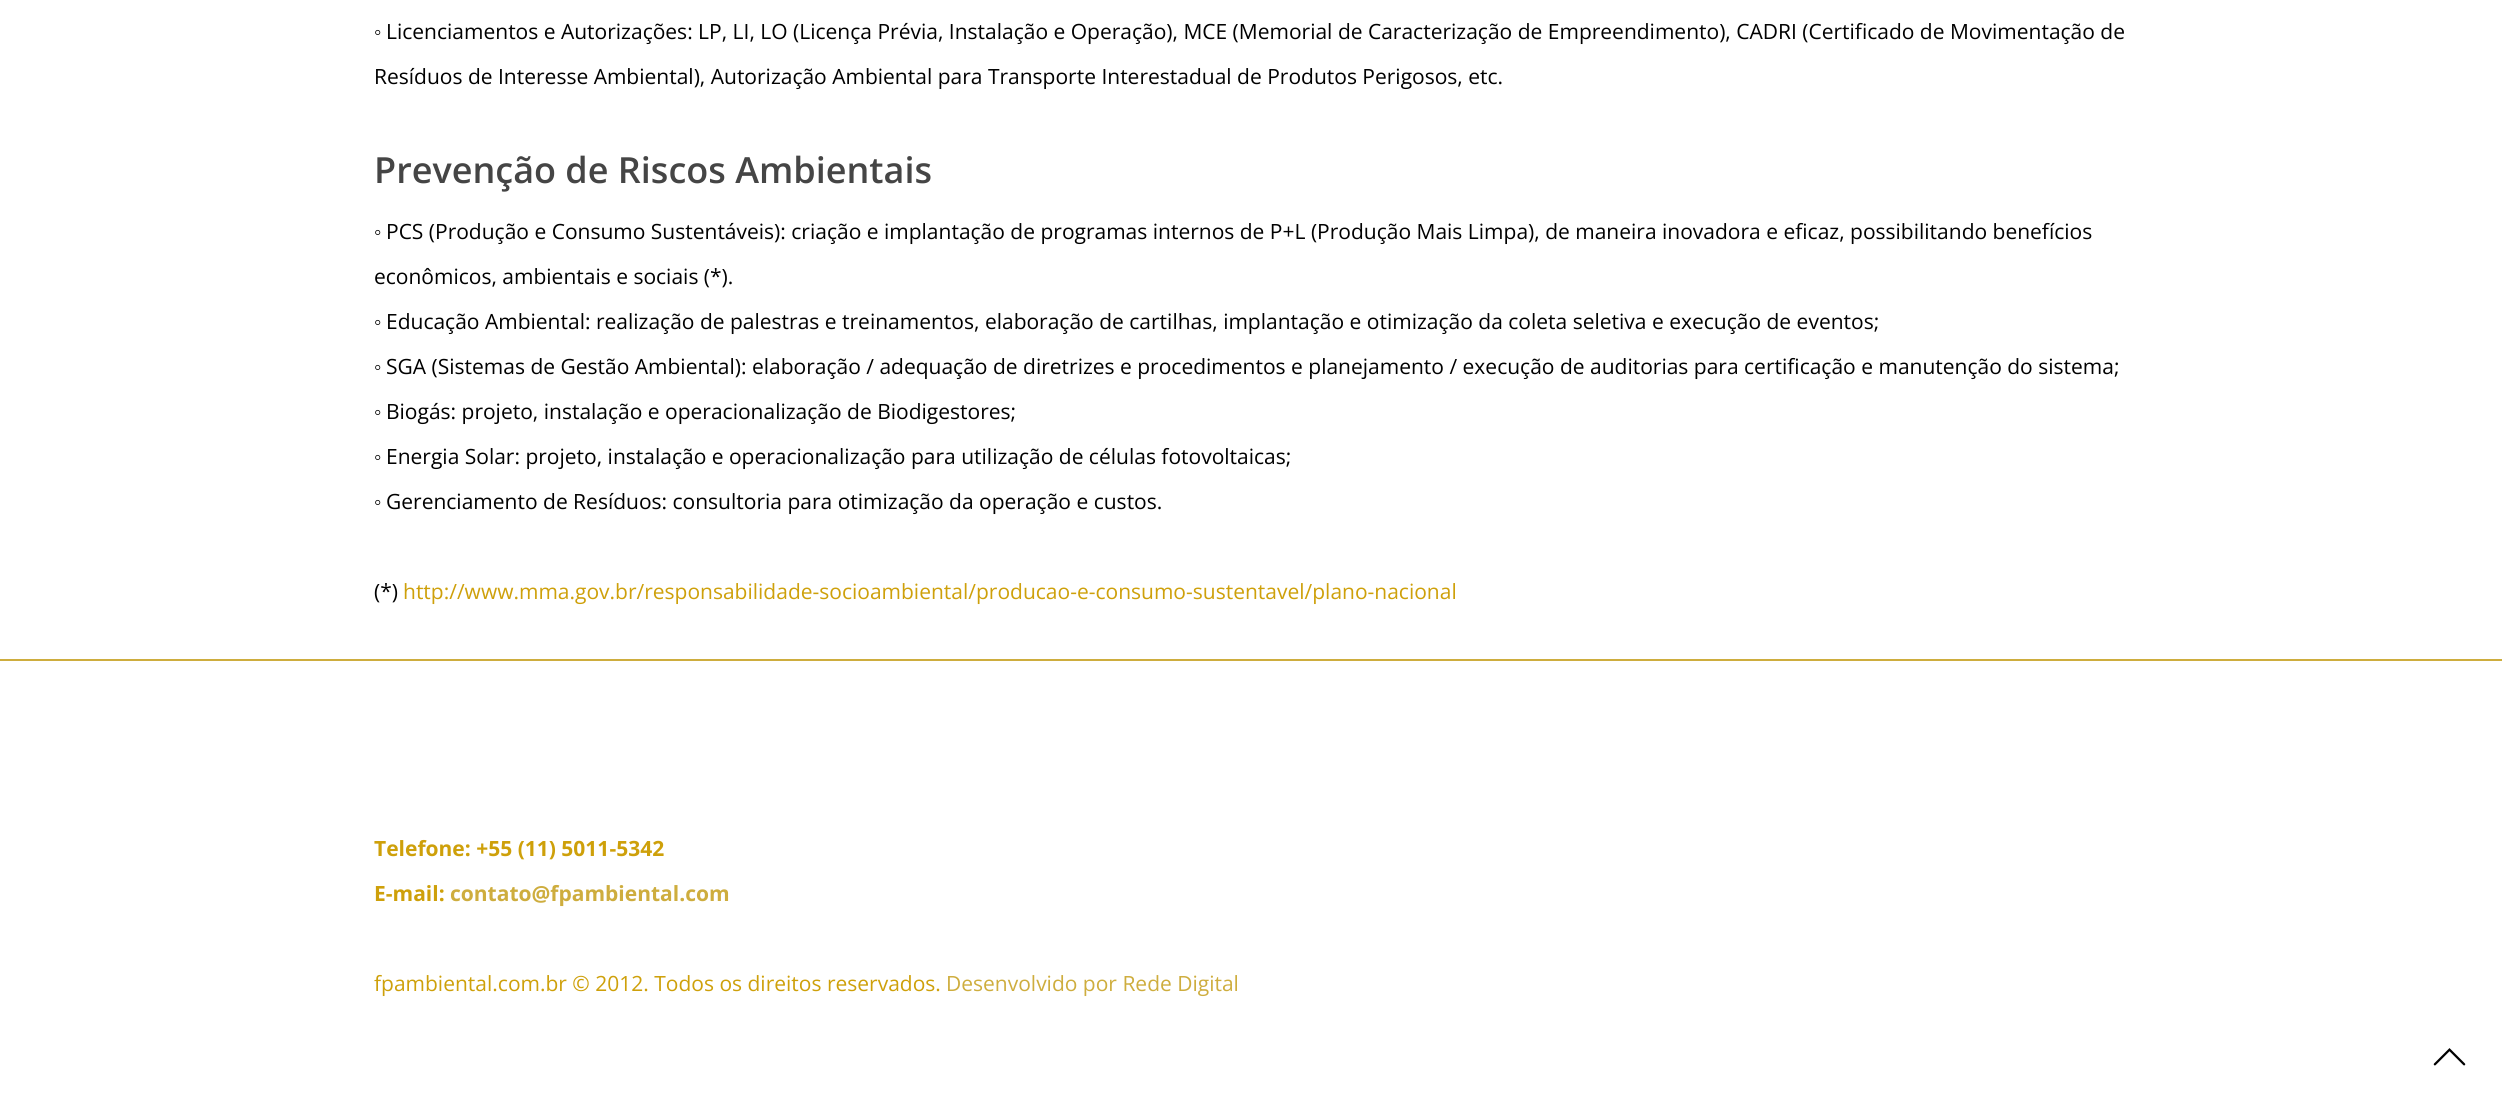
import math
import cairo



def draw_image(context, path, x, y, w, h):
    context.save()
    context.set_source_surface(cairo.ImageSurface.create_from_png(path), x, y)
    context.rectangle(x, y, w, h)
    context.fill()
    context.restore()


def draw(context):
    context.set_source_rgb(1, 1, 1)
    context.paint()
    context.set_source_rgb(206 / 255, 173 / 255, 62 / 255)
    context.rectangle(0, 659, 2502, 2)
    context.fill()
    draw_image(context, "images/1.png", 2433, 1048, 33, 18)
    context.select_font_face("Liberation Serif")
    context.set_font_size(21)
    context.set_source_rgb(0, 0, 0)
    context.move_to(374, 39)
    context.show_text("◦")
    context.select_font_face("Open Sans")
    context.move_to(386, 39)
    context.show_text("Licenciamentos e Autorizações: LP, LI, LO (Licença Prévia, Instalação e Operação), MCE (Memorial de Caracterização de Empreendimento), CADRI (Certificado de Movimentação de")
    context.move_to(374, 84)
    context.show_text("Resíduos de Interesse Ambiental), Autorização Ambiental para Transporte Interestadual de Produtos Perigosos, etc.")
    context.select_font_face("Open Sans SemiBold")
    context.set_font_size(36)
    context.set_source_rgb(69 / 255, 69 / 255, 69 / 255)
    context.move_to(374, 183)
    context.show_text("Prevenção de Riscos Ambientais")
    context.select_font_face("Liberation Serif")
    context.set_font_size(21)
    context.set_source_rgb(0, 0, 0)
    context.move_to(374, 239)
    context.show_text("◦")
    context.select_font_face("Open Sans")
    context.move_to(386, 239)
    context.show_text("PCS (Produção e Consumo Sustentáveis): criação e implantação de programas internos de P+L (Produção Mais Limpa), de maneira inovadora e eficaz, possibilitando benefícios")
    context.move_to(374, 284)
    context.show_text("econômicos, ambientais e sociais (*).")
    context.select_font_face("Liberation Serif")
    context.move_to(374, 329)
    context.show_text("◦")
    context.select_font_face("Open Sans")
    context.move_to(386, 329)
    context.show_text("Educação Ambiental: realização de palestras e treinamentos, elaboração de cartilhas, implantação e otimização da coleta seletiva e execução de eventos;")
    context.select_font_face("Liberation Serif")
    context.move_to(374, 374)
    context.show_text("◦")
    context.select_font_face("Open Sans")
    context.move_to(386, 374)
    context.show_text("SGA (Sistemas de Gestão Ambiental): elaboração / adequação de diretrizes e procedimentos e planejamento / execução de auditorias para certificação e manutenção do sistema;")
    context.select_font_face("Liberation Serif")
    context.move_to(374, 419)
    context.show_text("◦")
    context.select_font_face("Open Sans")
    context.move_to(386, 419)
    context.show_text("Biogás: projeto, instalação e operacionalização de Biodigestores;")
    context.select_font_face("Liberation Serif")
    context.move_to(374, 464)
    context.show_text("◦")
    context.select_font_face("Open Sans")
    context.move_to(386, 464)
    context.show_text("Energia Solar: projeto, instalação e operacionalização para utilização de células fotovoltaicas;")
    context.select_font_face("Liberation Serif")
    context.move_to(374, 509)
    context.show_text("◦")
    context.select_font_face("Open Sans")
    context.move_to(386, 509)
    context.show_text("Gerenciamento de Resíduos: consultoria para otimização da operação e custos.")
    context.move_to(374, 599)
    context.show_text("(*)")
    context.set_source_rgb(206 / 255, 160 / 255, 10 / 255)
    context.move_to(403, 599)
    context.show_text("http://www.mma.gov.br/responsabilidade-socioambiental/producao-e-consumo-sustentavel/plano-nacional")
    context.select_font_face("Open Sans", cairo.FontSlant.NORMAL, cairo.FontWeight.BOLD)
    context.move_to(374, 856)
    context.show_text("Telefone: +55 (11) 5011-5342")
    context.move_to(374, 901)
    context.show_text("E-mail:")
    context.set_source_rgb(206 / 255, 173 / 255, 62 / 255)
    context.move_to(450, 901)
    context.show_text("contato@fpambiental.com")
    context.select_font_face("Open Sans")
    context.set_source_rgb(206 / 255, 160 / 255, 10 / 255)
    context.move_to(374, 991)
    context.show_text("fpambiental.com.br © 2012. Todos os direitos reservados.")
    context.set_source_rgb(206 / 255, 173 / 255, 62 / 255)
    context.move_to(946, 991)
    context.show_text("Desenvolvido por Rede Digital")


surface = cairo.ImageSurface(cairo.Format.RGB24, 2502, 1110)
context = cairo.Context(surface)
options = cairo.FontOptions()
options.set_hint_metrics(cairo.HintMetrics.OFF)
options.set_hint_style(cairo.HintStyle.NONE)
context.set_font_options(options)
context.set_miter_limit(4)
draw(context)
surface.write_to_png("out.png")
